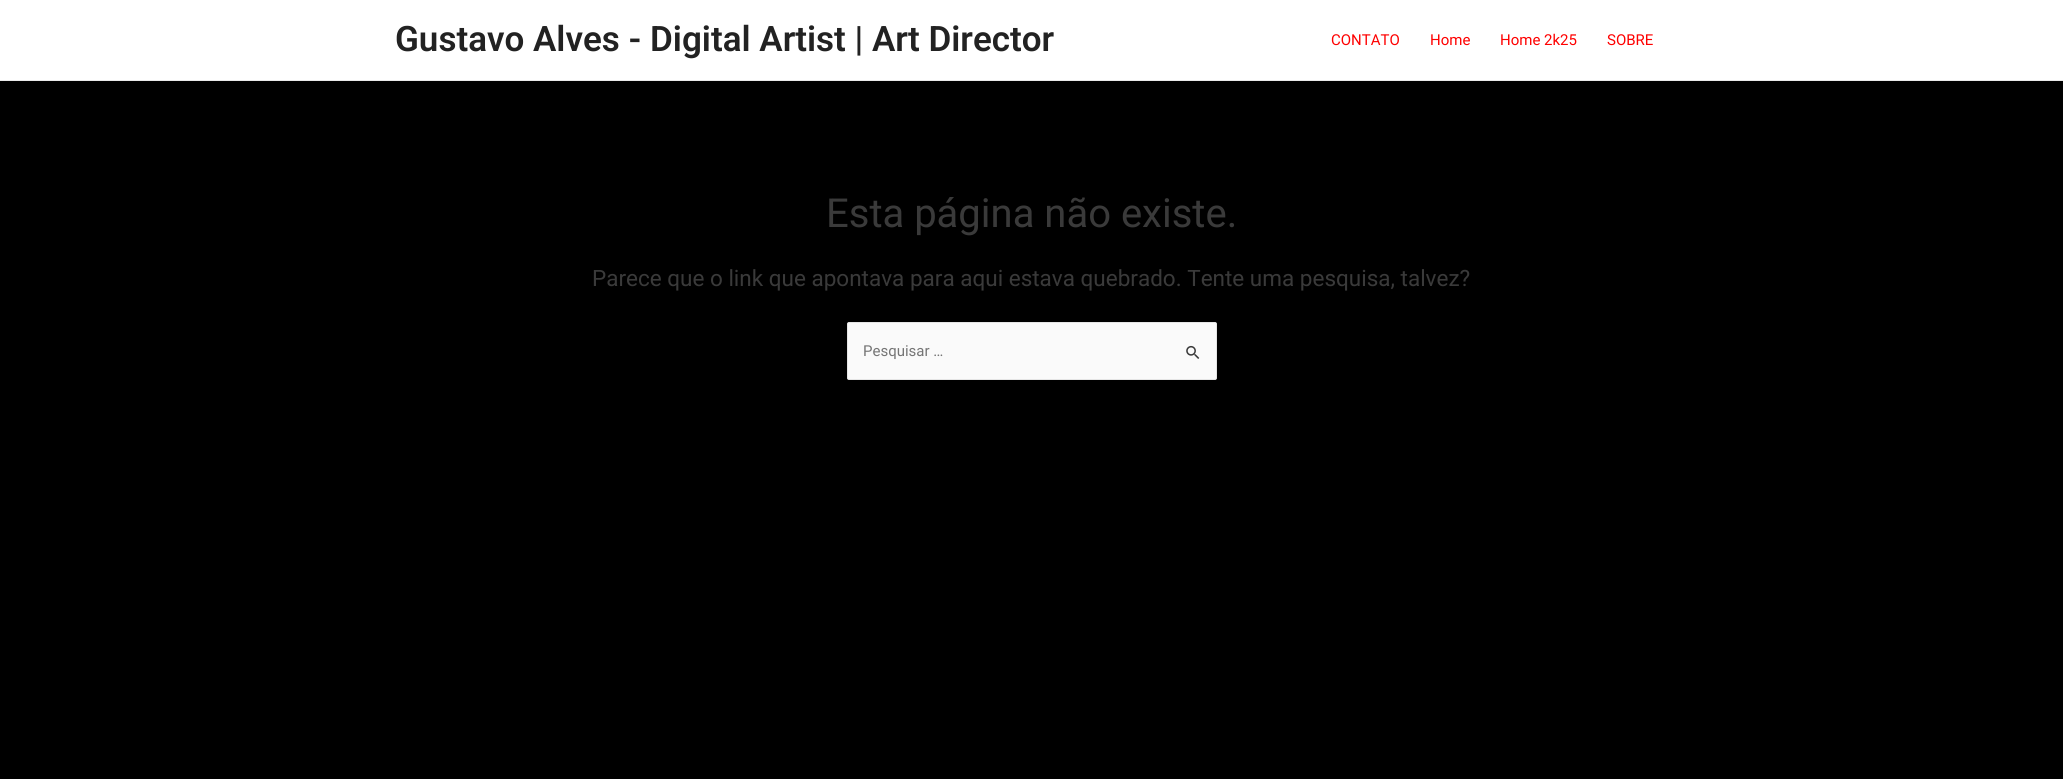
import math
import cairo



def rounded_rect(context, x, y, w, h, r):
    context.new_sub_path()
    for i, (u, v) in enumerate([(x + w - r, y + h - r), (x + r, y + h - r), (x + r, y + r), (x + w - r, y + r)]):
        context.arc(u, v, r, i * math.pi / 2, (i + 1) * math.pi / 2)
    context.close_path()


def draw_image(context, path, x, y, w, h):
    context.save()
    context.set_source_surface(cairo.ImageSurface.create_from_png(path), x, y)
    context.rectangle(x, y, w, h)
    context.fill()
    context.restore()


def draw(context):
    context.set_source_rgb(0, 0, 0)
    context.paint()
    context.set_source_rgb(1, 1, 1)
    context.rectangle(0, 0, 2063, 80)
    context.fill()
    context.set_source_rgb(234 / 255, 234 / 255, 234 / 255)
    context.rectangle(0, 80, 2063, 1)
    context.fill()
    context.set_source_rgb(250 / 255, 250 / 255, 250 / 255)
    rounded_rect(context, 847.5, 322.5, 369, 57, 1.5)
    context.fill_preserve()
    context.set_source_rgb(229 / 255, 229 / 255, 229 / 255)
    context.set_line_width(1)
    context.stroke()
    draw_image(context, "images/1.png", 1186, 345, 14, 14)
    context.select_font_face("Roboto SemiBold")
    context.set_font_size(35)
    context.set_source_rgb(34 / 255, 34 / 255, 34 / 255)
    context.move_to(395, 51)
    context.show_text("Gustavo Alves - Digital Artist | Art Director")
    context.select_font_face("Roboto")
    context.set_font_size(15)
    context.set_source_rgb(254 / 255, 0, 0)
    context.move_to(1331, 45)
    context.show_text("CONTATO")
    context.move_to(1430, 45)
    context.show_text("Home")
    context.move_to(1500, 45)
    context.show_text("Home 2k25")
    context.move_to(1607, 45)
    context.show_text("SOBRE")
    context.set_font_size(40)
    context.set_source_rgb(58 / 255, 58 / 255, 58 / 255)
    context.move_to(826, 227)
    context.show_text("Esta página não existe.")
    context.set_font_size(22.5)
    context.move_to(592, 286)
    context.show_text("Parece que o link que apontava para aqui estava quebrado. Tente uma pesquisa, talvez?")
    context.set_font_size(15)
    context.set_source_rgb(117 / 255, 117 / 255, 117 / 255)
    context.move_to(863, 356)
    context.show_text("Pesquisar …")


surface = cairo.ImageSurface(cairo.Format.RGB24, 2063, 779)
context = cairo.Context(surface)
options = cairo.FontOptions()
options.set_hint_metrics(cairo.HintMetrics.OFF)
options.set_hint_style(cairo.HintStyle.NONE)
context.set_font_options(options)
context.set_miter_limit(4)
draw(context)
surface.write_to_png("out.png")
